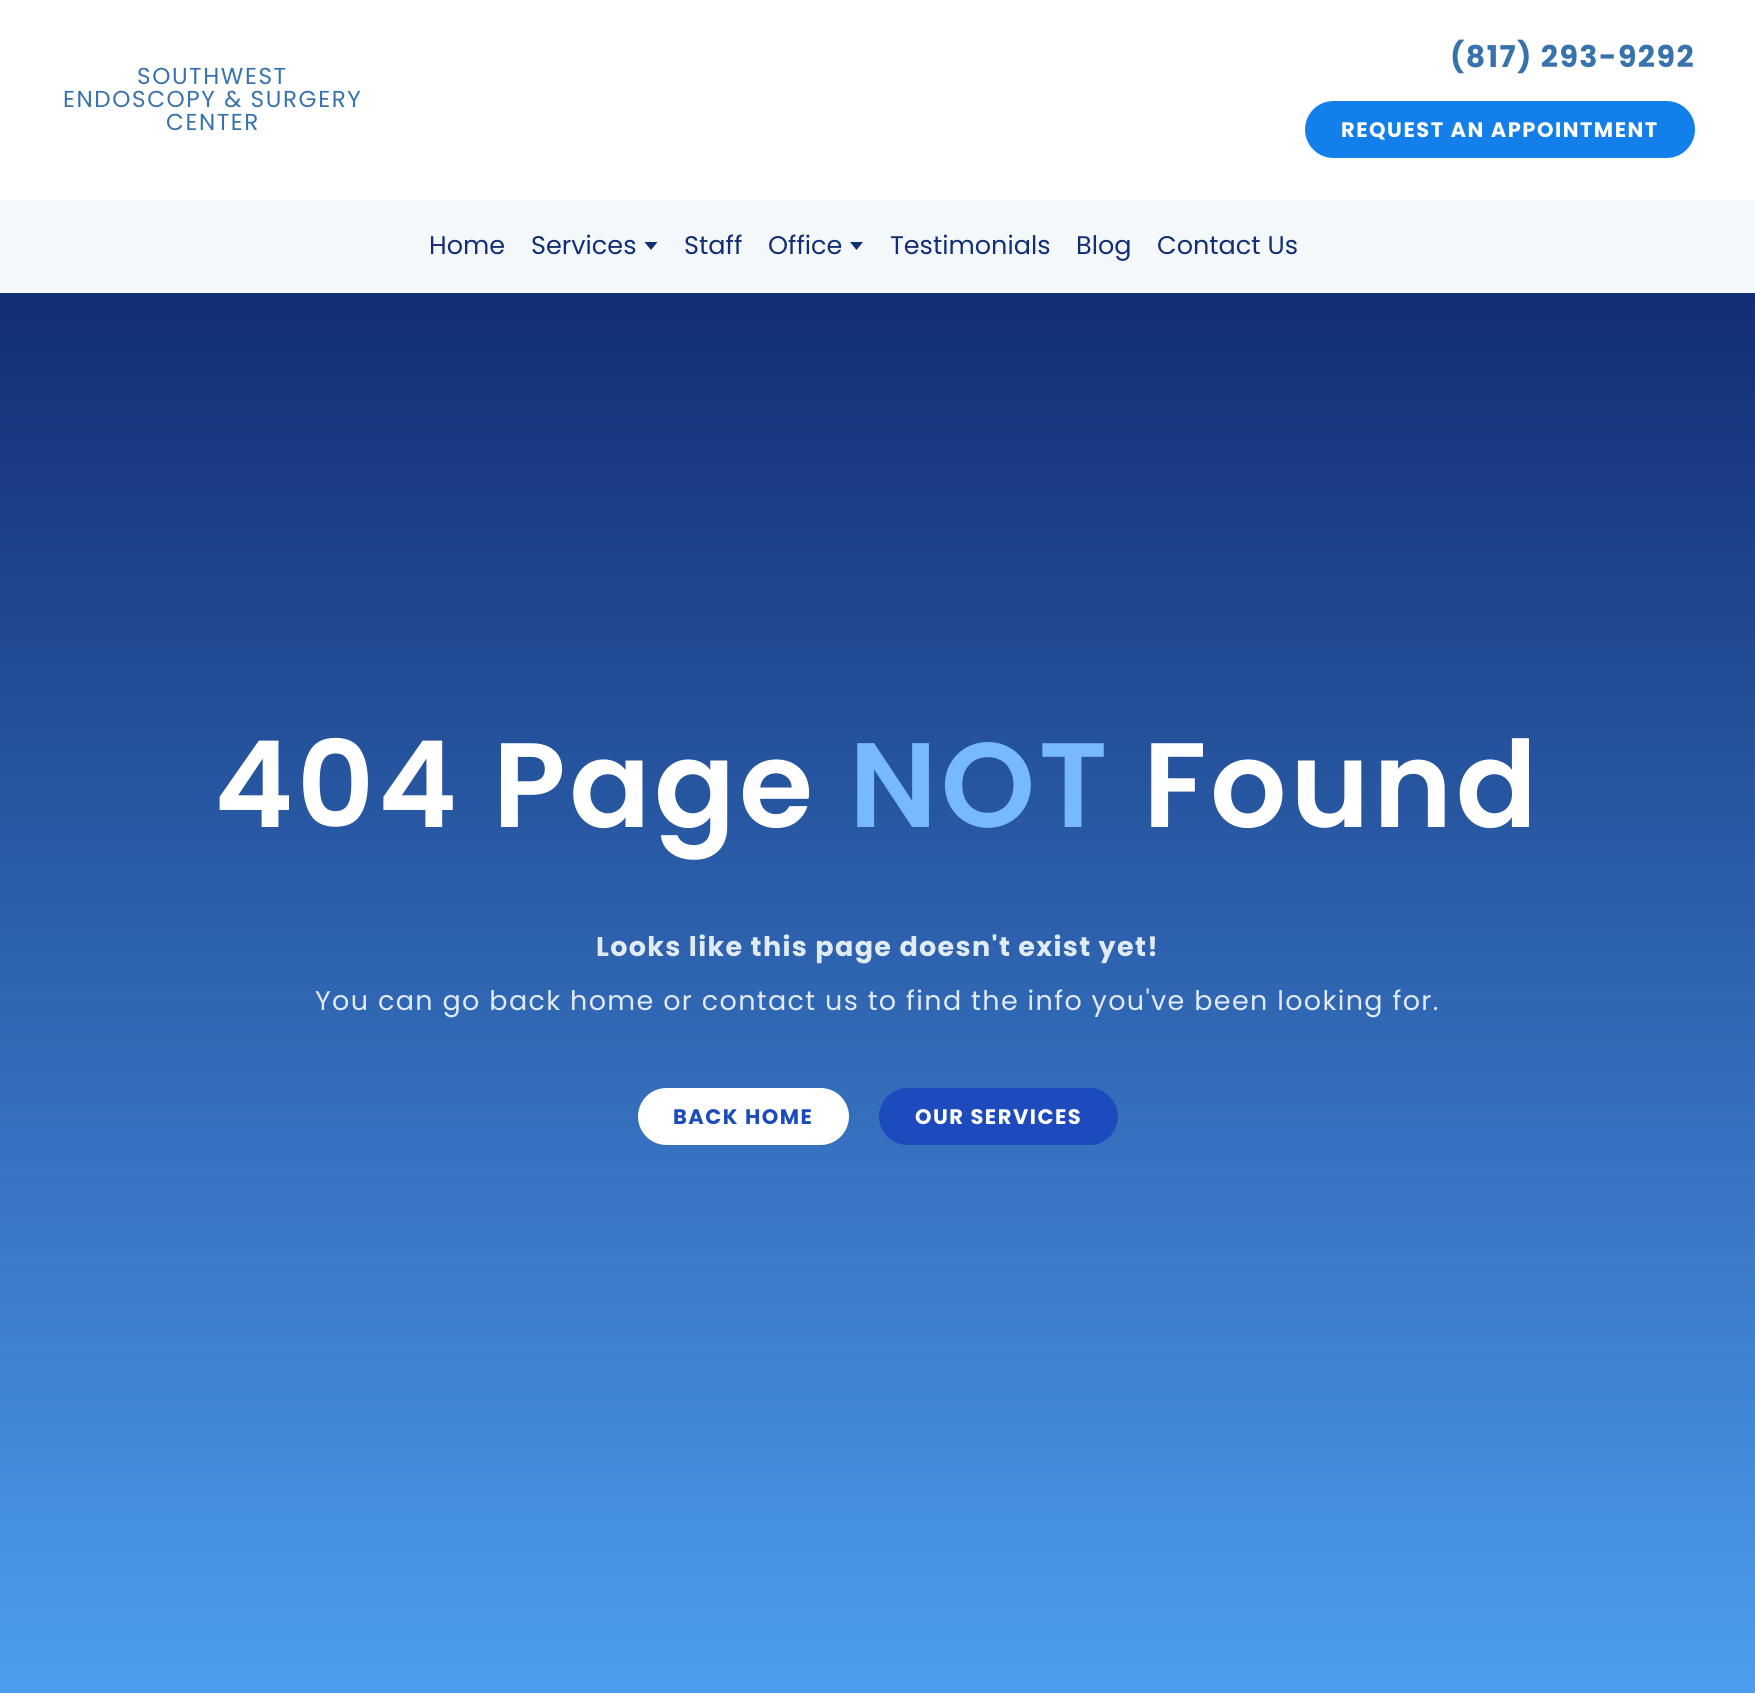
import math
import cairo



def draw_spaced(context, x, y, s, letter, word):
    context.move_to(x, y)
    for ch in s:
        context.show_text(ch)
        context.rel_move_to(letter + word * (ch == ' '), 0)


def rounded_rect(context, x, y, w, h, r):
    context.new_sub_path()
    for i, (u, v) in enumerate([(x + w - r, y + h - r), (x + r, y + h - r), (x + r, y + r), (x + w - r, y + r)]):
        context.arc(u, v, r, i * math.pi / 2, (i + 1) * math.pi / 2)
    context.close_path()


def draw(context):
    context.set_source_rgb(1, 1, 1)
    context.paint()
    context.set_source_rgb(19 / 255, 127 / 255, 235 / 255)
    rounded_rect(context, 1305, 101, 390, 57, 28.5)
    context.fill()
    context.set_source_rgb(244 / 255, 248 / 255, 251 / 255)
    context.rectangle(0, 200, 1755, 93)
    context.fill()
    context.set_source_rgb(18 / 255, 46 / 255, 116 / 255)
    context.new_path()
    context.move_to(651, 250)
    context.line_to(657.5, 242)
    context.line_to(644.5, 242)
    context.close_path()
    context.fill()
    context.new_path()
    context.move_to(856.5, 250)
    context.line_to(863, 242)
    context.line_to(850, 242)
    context.close_path()
    context.fill()
    gradient = cairo.LinearGradient(878, 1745, 878, 293)
    gradient.add_color_stop_rgba(0, 79 / 255, 161 / 255, 244 / 255, 1)
    gradient.add_color_stop_rgba(1, 18 / 255, 46 / 255, 116 / 255, 1)
    context.set_source(gradient)
    context.rectangle(0, 293, 1755, 1400)
    context.fill()
    context.set_source_rgb(1, 1, 1)
    rounded_rect(context, 638, 1088, 211, 57, 28.5)
    context.fill()
    context.set_source_rgb(29 / 255, 75 / 255, 189 / 255)
    rounded_rect(context, 879, 1088, 239, 57, 28.5)
    context.fill()
    context.select_font_face("Poppins")
    context.set_font_size(23.1)
    context.set_source_rgb(55 / 255, 114 / 255, 173 / 255)
    draw_spaced(context, 137, 84, "SOUTHWEST", 1.6, 0)
    draw_spaced(context, 63, 107, "ENDOSCOPY & SURGERY", 1.6, 0)
    draw_spaced(context, 166, 130, "CENTER", 1.6, 0)
    context.select_font_face("Poppins", cairo.FontSlant.NORMAL, cairo.FontWeight.BOLD)
    context.set_font_size(30)
    draw_spaced(context, 1450, 67, "(817) 293-9292", 1.5, 0)
    context.set_font_size(21)
    context.set_source_rgb(1, 1, 1)
    draw_spaced(context, 1341, 137, "REQUEST AN APPOINTMENT", 1.5, 0)
    context.select_font_face("Poppins")
    context.set_font_size(25.5)
    context.set_source_rgb(18 / 255, 46 / 255, 116 / 255)
    context.move_to(429, 254)
    context.show_text("Home")
    context.move_to(531, 254)
    context.show_text("Services")
    context.move_to(684, 254)
    context.show_text("Staff")
    context.move_to(768, 254)
    context.show_text("Office")
    context.move_to(890, 254)
    context.show_text("Testimonials")
    context.move_to(1076, 254)
    context.show_text("Blog")
    context.move_to(1157, 254)
    context.show_text("Contact Us")
    context.select_font_face("Poppins SemiBold")
    context.set_font_size(120)
    context.set_source_rgb(1, 1, 1)
    draw_spaced(context, 214, 827, "404 Page", 3.5, 0)
    context.set_source_rgb(118 / 255, 185 / 255, 253 / 255)
    draw_spaced(context, 849, 827, "NOT", 3.5, 0)
    context.set_source_rgb(1, 1, 1)
    draw_spaced(context, 1143, 827, "Found", 3.5, 0)
    context.select_font_face("Poppins", cairo.FontSlant.NORMAL, cairo.FontWeight.BOLD)
    context.set_font_size(27)
    context.set_source_rgb(225 / 255, 235 / 255, 245 / 255)
    draw_spaced(context, 596, 956, "Looks like this page doesn't exist yet!", 1.35, 0)
    context.select_font_face("Poppins")
    draw_spaced(context, 315, 1010, "You can go back home or contact us to find the info you've been looking for.", 1.35, 0)
    context.select_font_face("Poppins", cairo.FontSlant.NORMAL, cairo.FontWeight.BOLD)
    context.set_font_size(21)
    context.set_source_rgb(29 / 255, 75 / 255, 189 / 255)
    draw_spaced(context, 673, 1124, "BACK HOME", 1.5, 0)
    context.set_source_rgb(1, 1, 1)
    draw_spaced(context, 915, 1124, "OUR SERVICES", 1.5, 0)


surface = cairo.ImageSurface(cairo.Format.RGB24, 1755, 1693)
context = cairo.Context(surface)
options = cairo.FontOptions()
options.set_hint_metrics(cairo.HintMetrics.OFF)
options.set_hint_style(cairo.HintStyle.NONE)
context.set_font_options(options)
context.set_miter_limit(4)
draw(context)
surface.write_to_png("out.png")
